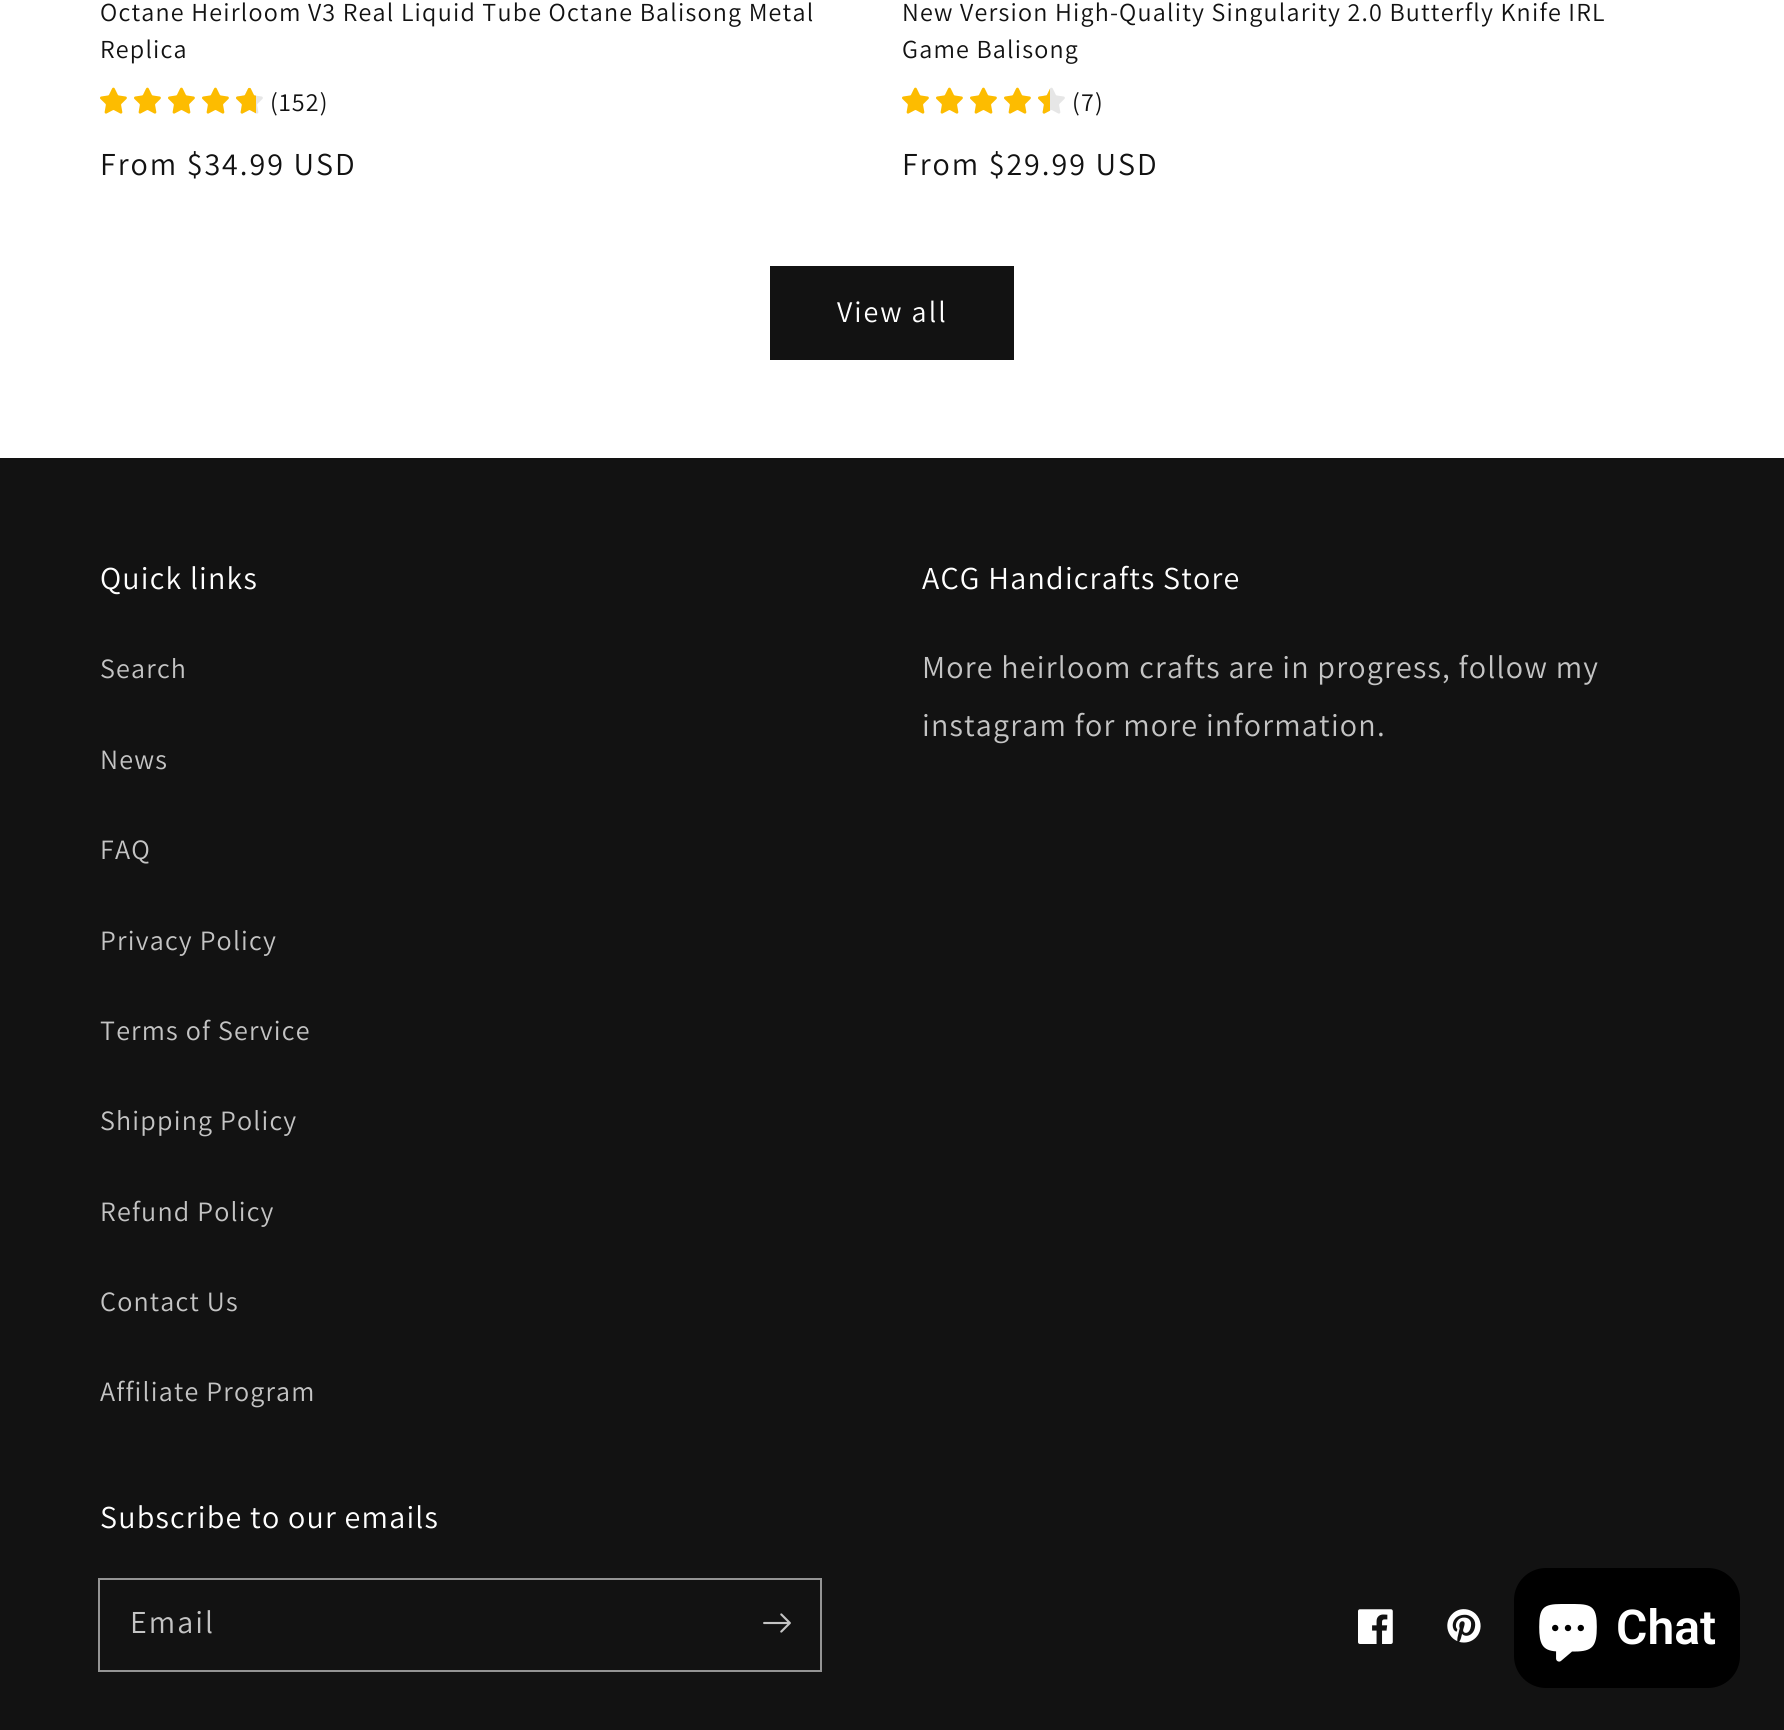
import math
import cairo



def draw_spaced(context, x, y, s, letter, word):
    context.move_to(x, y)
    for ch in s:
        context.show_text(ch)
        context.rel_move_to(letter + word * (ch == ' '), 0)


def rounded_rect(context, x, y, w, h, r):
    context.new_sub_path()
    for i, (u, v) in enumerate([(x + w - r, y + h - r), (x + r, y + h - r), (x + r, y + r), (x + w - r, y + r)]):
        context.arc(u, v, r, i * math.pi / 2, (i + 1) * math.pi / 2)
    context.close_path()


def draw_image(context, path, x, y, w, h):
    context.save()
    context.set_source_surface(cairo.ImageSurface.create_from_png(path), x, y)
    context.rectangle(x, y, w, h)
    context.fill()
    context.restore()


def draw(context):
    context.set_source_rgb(1, 1, 1)
    context.paint()
    draw_image(context, "images/1.png", 100, 87, 27, 27)
    draw_image(context, "images/1.png", 134, 87, 27, 27)
    draw_image(context, "images/1.png", 168, 87, 27, 27)
    draw_image(context, "images/1.png", 202, 87, 27, 27)
    draw_image(context, "images/2.png", 236, 87, 27, 27)
    draw_image(context, "images/3.png", 236, 88, 20, 26)
    draw_image(context, "images/1.png", 902, 87, 27, 27)
    draw_image(context, "images/1.png", 936, 87, 27, 27)
    draw_image(context, "images/1.png", 970, 87, 27, 27)
    draw_image(context, "images/1.png", 1004, 87, 27, 27)
    draw_image(context, "images/2.png", 1038, 87, 27, 27)
    draw_image(context, "images/4.png", 1038, 88, 12, 26)
    context.rectangle(771, 267, 242, 92)
    context.set_source_rgb(18 / 255, 18 / 255, 18 / 255)
    context.stroke()
    context.rectangle(772, 268, 240, 90)
    context.fill()
    context.rectangle(0, 458, 1784, 1272)
    context.fill()
    context.rectangle(99, 1579, 722, 92)
    context.set_source_rgb(148 / 255, 148 / 255, 148 / 255)
    context.stroke()
    draw_image(context, "images/5.png", 763, 1613, 28, 20)
    draw_image(context, "images/6.png", 1358, 1609, 35, 35)
    draw_image(context, "images/7.png", 1447, 1609, 34, 34)
    context.set_source_rgb(0, 0, 0)
    rounded_rect(context, 1514, 1568, 226, 120, 32)
    context.fill()
    draw_image(context, "images/8.png", 1539, 1604, 58, 58)
    context.select_font_face("Assistant")
    context.set_font_size(26)
    context.set_source_rgb(18 / 255, 18 / 255, 18 / 255)
    draw_spaced(context, 100, 21, "Octane Heirloom V3 Real Liquid Tube Octane Balisong Metal", 1.2, 0)
    draw_spaced(context, 100, 58, "Replica", 1.2, 0)
    draw_spaced(context, 270, 111, "(152)", 1.2, 0)
    context.set_font_size(32)
    draw_spaced(context, 100, 175, "From $34.99 USD", 2, 0)
    context.set_font_size(26)
    draw_spaced(context, 902, 21, "New Version High-Quality Singularity 2.0 Butterfly Knife IRL", 1.2, 0)
    draw_spaced(context, 902, 58, "Game Balisong", 1.2, 0)
    draw_spaced(context, 1072, 111, "(7)", 1.2, 0)
    context.set_font_size(32)
    draw_spaced(context, 902, 175, "From $29.99 USD", 2, 0)
    context.set_font_size(30)
    context.set_source_rgb(1, 1, 1)
    draw_spaced(context, 837, 322, "View all", 2, 0)
    context.set_font_size(32)
    draw_spaced(context, 100, 589, "Quick links", 1.2, 0)
    context.set_font_size(28)
    context.set_source_rgb(196 / 255, 196 / 255, 196 / 255)
    draw_spaced(context, 100, 678, "Search", 1.2, 0)
    draw_spaced(context, 100, 769, "News", 1.2, 0)
    draw_spaced(context, 100, 859, "FAQ", 1.2, 0)
    draw_spaced(context, 100, 950, "Privacy Policy", 1.2, 0)
    draw_spaced(context, 100, 1040, "Terms of Service", 1.2, 0)
    draw_spaced(context, 100, 1130, "Shipping Policy", 1.2, 0)
    draw_spaced(context, 100, 1221, "Refund Policy", 1.2, 0)
    draw_spaced(context, 100, 1311, "Contact Us", 1.2, 0)
    draw_spaced(context, 100, 1401, "Affiliate Program", 1.2, 0)
    context.set_font_size(32)
    context.set_source_rgb(1, 1, 1)
    draw_spaced(context, 922, 589, "ACG Handicrafts Store", 1.2, 0)
    context.set_source_rgb(196 / 255, 196 / 255, 196 / 255)
    draw_spaced(context, 922, 678, "More heirloom crafts are in progress, follow my", 1.2, 0)
    draw_spaced(context, 922, 736, "instagram for more information.", 1.2, 0)
    context.set_source_rgb(1, 1, 1)
    draw_spaced(context, 100, 1528, "Subscribe to our emails", 1.2, 0)
    context.set_source_rgb(196 / 255, 196 / 255, 196 / 255)
    draw_spaced(context, 130, 1633, "Email", 2, 0)
    context.select_font_face("Roboto SemiBold")
    context.set_font_size(48)
    context.set_source_rgb(1, 1, 1)
    context.move_to(1616, 1644)
    context.show_text("Chat")


surface = cairo.ImageSurface(cairo.Format.RGB24, 1784, 1730)
context = cairo.Context(surface)
options = cairo.FontOptions()
options.set_hint_metrics(cairo.HintMetrics.OFF)
options.set_hint_style(cairo.HintStyle.NONE)
context.set_font_options(options)
context.set_miter_limit(4)
draw(context)
surface.write_to_png("out.png")
